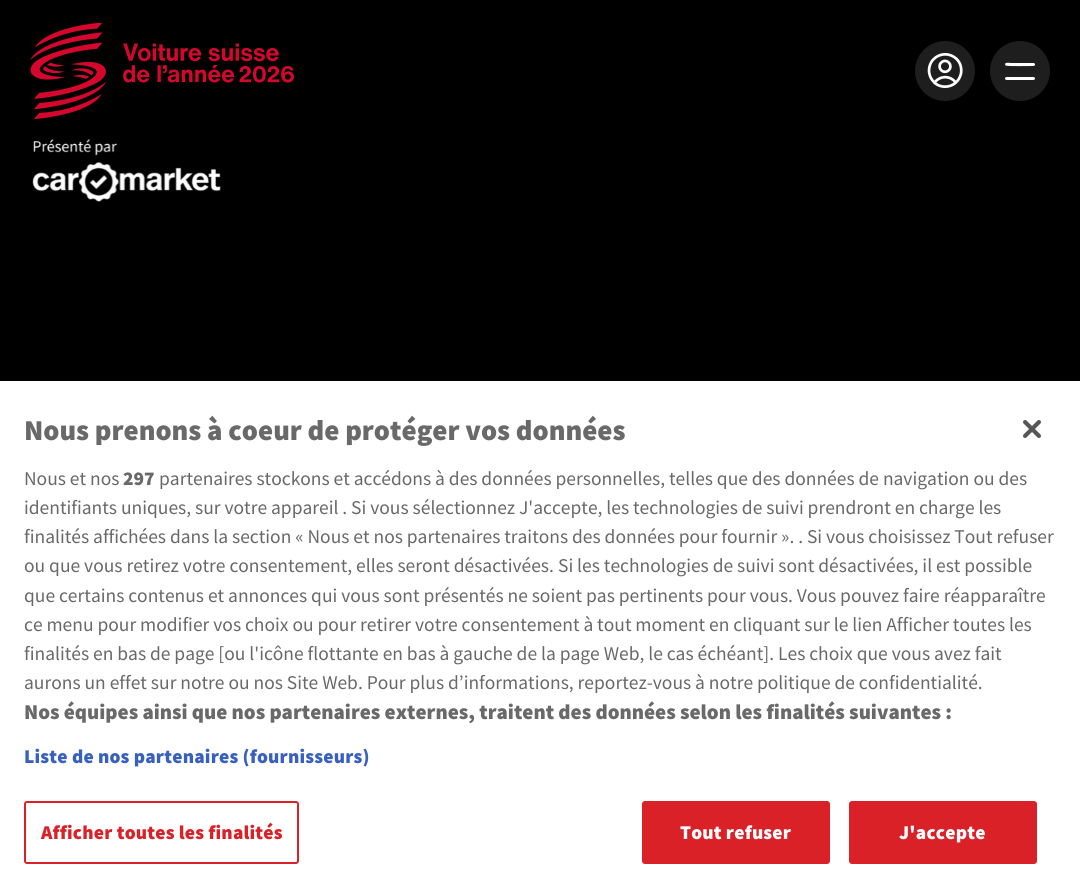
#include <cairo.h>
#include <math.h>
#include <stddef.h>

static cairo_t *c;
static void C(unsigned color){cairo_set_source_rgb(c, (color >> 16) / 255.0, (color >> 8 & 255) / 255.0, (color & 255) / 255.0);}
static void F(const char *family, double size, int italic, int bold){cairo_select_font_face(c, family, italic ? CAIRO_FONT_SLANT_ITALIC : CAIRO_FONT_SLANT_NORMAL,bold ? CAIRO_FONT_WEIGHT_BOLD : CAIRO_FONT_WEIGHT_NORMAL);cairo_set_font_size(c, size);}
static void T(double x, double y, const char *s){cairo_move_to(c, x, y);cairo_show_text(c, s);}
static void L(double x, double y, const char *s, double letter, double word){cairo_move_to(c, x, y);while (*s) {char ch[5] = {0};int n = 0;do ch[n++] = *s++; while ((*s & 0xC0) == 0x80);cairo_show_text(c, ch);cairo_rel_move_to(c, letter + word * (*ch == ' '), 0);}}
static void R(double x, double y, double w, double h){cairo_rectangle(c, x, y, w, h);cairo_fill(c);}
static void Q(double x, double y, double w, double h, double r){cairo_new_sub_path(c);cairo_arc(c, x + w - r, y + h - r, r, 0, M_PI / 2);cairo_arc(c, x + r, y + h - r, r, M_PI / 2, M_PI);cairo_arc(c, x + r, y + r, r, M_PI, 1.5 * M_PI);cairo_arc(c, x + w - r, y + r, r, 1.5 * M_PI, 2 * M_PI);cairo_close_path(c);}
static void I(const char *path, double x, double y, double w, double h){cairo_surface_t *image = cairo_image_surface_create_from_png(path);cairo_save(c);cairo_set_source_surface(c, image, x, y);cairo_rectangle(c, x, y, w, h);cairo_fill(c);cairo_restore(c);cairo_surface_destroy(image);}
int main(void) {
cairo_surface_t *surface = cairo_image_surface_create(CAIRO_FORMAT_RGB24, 1080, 885);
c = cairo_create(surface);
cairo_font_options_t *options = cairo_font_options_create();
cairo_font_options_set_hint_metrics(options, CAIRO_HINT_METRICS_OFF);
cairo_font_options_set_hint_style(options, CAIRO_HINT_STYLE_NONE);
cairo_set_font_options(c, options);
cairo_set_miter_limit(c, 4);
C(0x000000);
cairo_paint(c);
I("1.png",30,23,264,96);
I("2.png",32,139,189,63);
C(0x1e1e1e);
cairo_arc(c,945,71,30,0,2 * M_PI);
cairo_fill(c);
I("3.png",927,53,36,35);
cairo_arc(c,1020,71,30,0,2 * M_PI);
cairo_fill(c);
C(0xffffff);
cairo_new_path(c);
cairo_move_to(c,1033.5,66);
cairo_curve_to(c,1030,66,1006.5,66.5,1005.5,65.5);
cairo_line_to(c,1005,64);
cairo_curve_to(c,1005.5,62,1010.5,63,1011,63);
cairo_line_to(c,1034,63);
cairo_curve_to(c,1035,63.5,1035.5,65,1034.5,65.5);
cairo_close_path(c);
cairo_fill(c);
Q(1005,77,30,3,1.5);
cairo_fill(c);
R(0,381,1080,504);
F("Source Sans Pro Black",28.8,0,0);
C(0x696969);
T(24,440,"Nous prenons à coeur de protéger vos données");
F("Source Sans Pro",19.5,0,0);
T(24,485,"Nous et nos");
F("Source Sans Pro Black",19.5,0,0);
T(123,485,"297");
F("Source Sans Pro",19.5,0,0);
T(159,485,"partenaires stockons et accédons à des données personnelles, telles que des données de navigation ou des");
T(24,514,"identifiants uniques, sur votre appareil . Si vous sélectionnez J'accepte, les technologies de suivi prendront en charge les");
T(24,543,"finalités affichées dans la section « Nous et nos partenaires traitons des données pour fournir ». . Si vous choisissez Tout refuser");
T(24,572,"ou que vous retirez votre consentement, elles seront désactivées.");
T(558,572,"Si les technologies de suivi sont désactivées, il est possible");
T(24,602,"que certains contenus et annonces qui vous sont présentés ne soient pas pertinents pour vous. Vous pouvez faire réapparaître");
T(24,631,"ce menu pour modifier vos choix ou pour retirer votre consentement à tout moment en cliquant sur le lien Afficher toutes les");
T(24,660,"finalités en bas de page [ou l'icône flottante en bas à gauche de la page Web, le cas échéant]. Les choix que vous avez fait");
T(24,689,"aurons un effet sur notre ou nos Site Web. Pour plus d’informations, reportez-vous à notre politique de confidentialité.");
F("Source Sans Pro Black",21.1,0,0);
T(24,719,"Nos équipes ainsi que nos partenaires externes, traitent des données selon les finalités suivantes :");
F("Source Sans Pro Black",19.5,0,0);
C(0x3860be);
L(24,763,"Liste de nos partenaires (fournisseurs)",.2,0);
Q(25,802,273,61,2);
C(0xda2128);
cairo_stroke(c);
L(41,839,"Afficher toutes les finalités",.2,0);
Q(643,802,186,61,2);
cairo_fill_preserve(c);
cairo_stroke(c);
C(0xffffff);
L(680,839,"Tout refuser",.2,0);
C(0xda2128);
Q(850,802,186,61,2);
cairo_fill_preserve(c);
cairo_stroke(c);
C(0xffffff);
L(899,839,"J'accepte",.2,0);
I("4.png",1023,420,18,18);
cairo_surface_write_to_png(surface, "o.png");
cairo_font_options_destroy(options);
cairo_destroy(c);
cairo_surface_destroy(surface);
return 0;
}
